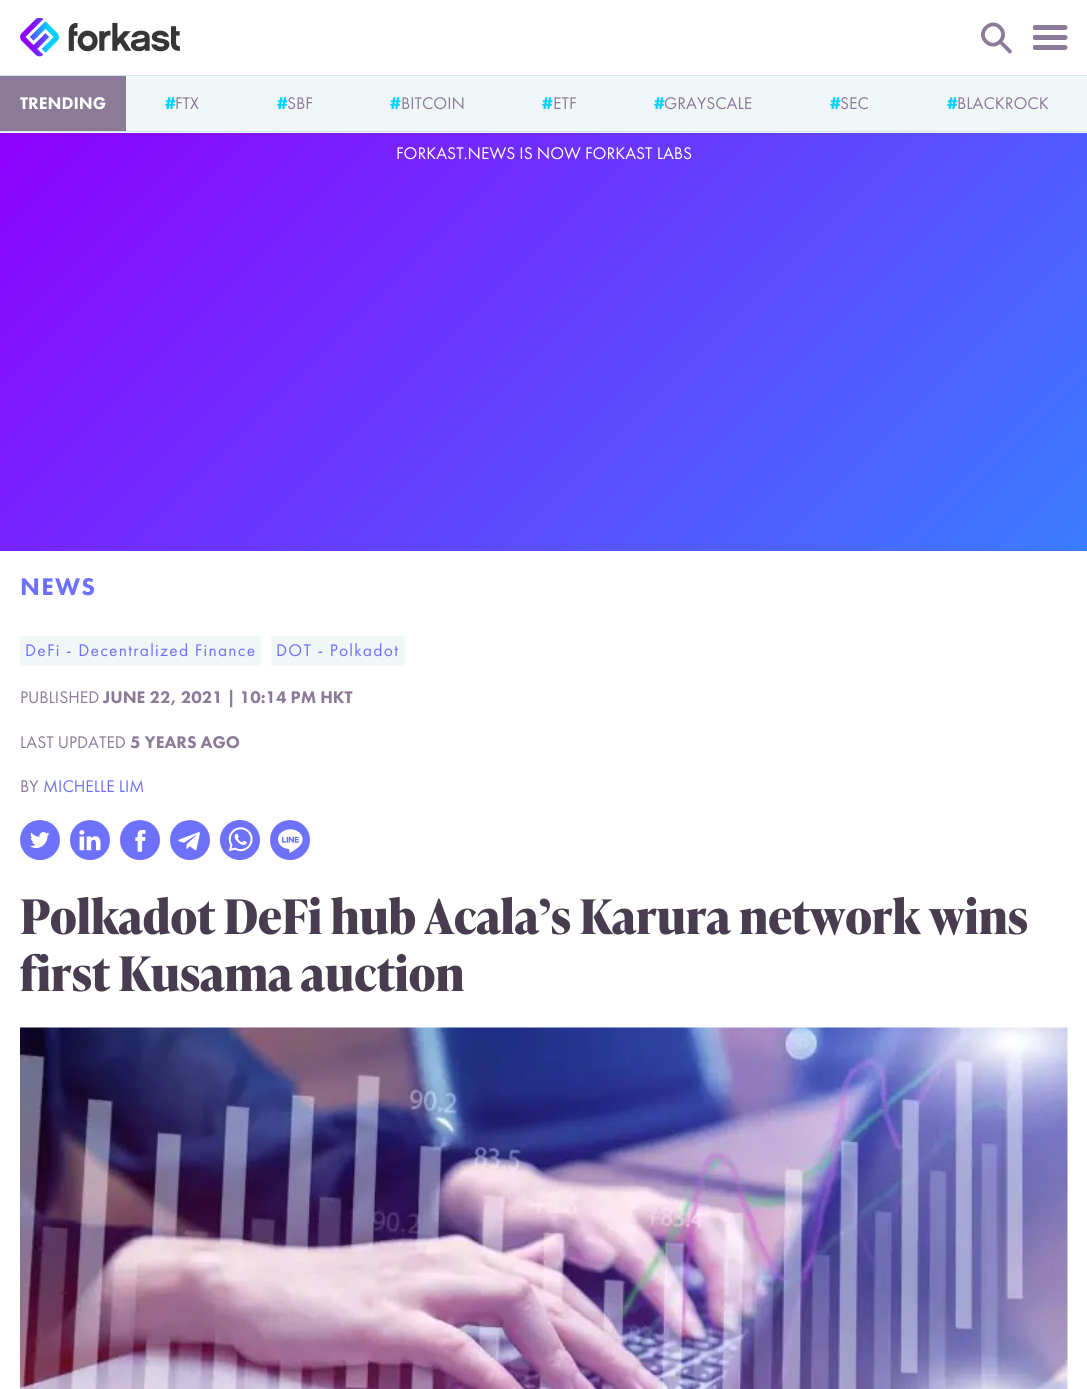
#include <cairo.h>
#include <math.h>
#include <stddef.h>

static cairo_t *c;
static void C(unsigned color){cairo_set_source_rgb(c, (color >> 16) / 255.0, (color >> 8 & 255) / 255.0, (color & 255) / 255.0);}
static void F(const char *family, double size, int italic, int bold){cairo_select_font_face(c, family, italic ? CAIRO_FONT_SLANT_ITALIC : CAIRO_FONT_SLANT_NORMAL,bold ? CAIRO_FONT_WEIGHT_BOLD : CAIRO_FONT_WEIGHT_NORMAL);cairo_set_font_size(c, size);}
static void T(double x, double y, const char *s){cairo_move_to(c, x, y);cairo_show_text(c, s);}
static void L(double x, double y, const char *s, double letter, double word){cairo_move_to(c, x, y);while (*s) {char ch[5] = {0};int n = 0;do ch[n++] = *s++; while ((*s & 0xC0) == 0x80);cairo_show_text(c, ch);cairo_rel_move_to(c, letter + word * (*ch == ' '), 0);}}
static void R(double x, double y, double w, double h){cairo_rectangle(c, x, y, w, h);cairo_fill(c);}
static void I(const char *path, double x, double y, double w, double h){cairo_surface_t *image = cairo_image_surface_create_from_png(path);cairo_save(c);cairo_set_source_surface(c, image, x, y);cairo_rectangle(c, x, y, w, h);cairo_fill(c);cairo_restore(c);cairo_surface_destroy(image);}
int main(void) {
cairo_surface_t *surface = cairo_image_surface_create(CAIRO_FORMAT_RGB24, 1087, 1389);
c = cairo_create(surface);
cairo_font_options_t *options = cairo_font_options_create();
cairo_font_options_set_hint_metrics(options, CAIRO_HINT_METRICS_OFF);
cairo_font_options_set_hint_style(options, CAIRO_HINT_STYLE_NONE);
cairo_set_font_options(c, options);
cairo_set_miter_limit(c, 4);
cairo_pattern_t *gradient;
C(0xffffff);
cairo_paint(c);
C(0xd2e4e8);
R(0,75,1087,1);
I("1.png",20,18,160,39);
cairo_new_path(c);
cairo_move_to(c,1000,27.5);
cairo_curve_to(c,1009.5,37,995,51,986,41.5);
cairo_curve_to(c,976.5,32.5,991,18,1000,27.5);
cairo_close_path(c);
C(0x8b7a98);
cairo_set_line_width(c,3.8);
cairo_stroke(c);
cairo_new_path(c);
cairo_move_to(c,1002,43.5);
cairo_line_to(c,1010,51.5);
cairo_set_line_cap(c,CAIRO_LINE_CAP_ROUND);
cairo_stroke(c);
I("2.png",1033,25,35,25);
C(0xf1f6f7);
R(0,76,1087,57);
C(0xd2e4e8);
R(0,131,1087,1);
C(0x8b7a98);
R(0,76,126,55);
F("Futura PT Black",17.5,0,0);
C(0xffffff);
T(20,109,"TRENDING");
C(0x00d2ff);
T(165,109,"#");
F("Futura PT",17.5,0,0);
C(0x8b7a98);
T(175,109,"FTX");
F("Futura PT Black",17.5,0,0);
C(0x00d2ff);
T(277,109,"#");
F("Futura PT",17.5,0,0);
C(0x8b7a98);
T(287,109,"SBF");
F("Futura PT Black",17.5,0,0);
C(0x00d2ff);
T(390,109,"#");
F("Futura PT",17.5,0,0);
C(0x8b7a98);
T(401,109,"BITCOIN");
F("Futura PT Black",17.5,0,0);
C(0x00d2ff);
T(542,109,"#");
F("Futura PT",17.5,0,0);
C(0x8b7a98);
T(553,109,"ETF");
F("Futura PT Black",17.5,0,0);
C(0x00d2ff);
T(654,109,"#");
F("Futura PT",17.5,0,0);
C(0x8b7a98);
T(664,109,"GRAYSCALE");
F("Futura PT Black",17.5,0,0);
C(0x00d2ff);
T(830,109,"#");
F("Futura PT",17.5,0,0);
C(0x8b7a98);
T(840,109,"SEC");
F("Futura PT Black",17.5,0,0);
C(0x00d2ff);
T(947,109,"#");
F("Futura PT",17.5,0,0);
C(0x8b7a98);
T(957,109,"BLACKROCK");
gradient = cairo_pattern_create_linear(167,-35,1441,1239);
cairo_pattern_add_color_stop_rgba(gradient,0,0.557,0,1,1);
cairo_pattern_add_color_stop_rgba(gradient,1,0,0.824,1,1);
cairo_set_source(c,gradient);
cairo_pattern_destroy(gradient);
R(0,133,1087,418);
C(0xffffff);
T(396,159,"FORKAST.NEWS IS NOW FORKAST LABS");
F("Futura PT Black",25,0,0);
C(0x6e71fc);
L(20,595,"NEWS",1.25,0);
C(0xf1f6f7);
R(20,636,241,30);
F("Futura PT",17.5,0,0);
C(0x6e71fc);
L(25,656,"DeFi - Decentralized Finance",1.25,0);
C(0xf1f6f7);
R(271,636,134,30);
C(0x6e71fc);
L(276,656,"DOT - Polkadot",1.25,0);
C(0x8b7a98);
T(20,703,"PUBLISHED");
F("Futura PT Black",17.5,0,0);
T(103,703,"JUNE 22, 2021 | 10:14 PM HKT");
F("Futura PT",17.5,0,0);
T(20,748,"LAST UPDATED");
F("Futura PT Black",17.5,0,0);
T(130,748,"5 YEARS AGO");
F("Futura PT",17.5,0,0);
T(20,792,"BY");
C(0x6e71fc);
T(43,792,"MICHELLE LIM");
I("3.png",20,820,40,40);
I("4.png",70,820,40,40);
I("5.png",120,820,40,40);
I("6.png",170,820,40,40);
I("7.png",220,820,40,40);
I("8.png",270,820,40,40);
F("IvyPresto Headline",47.5,0,1);
C(0x473d4f);
T(20,934,"Polkadot DeFi hub Acala’s Karura network wins");
T(20,991,"first Kusama auction");
I("9.png",20,1027,1048,362);
cairo_surface_write_to_png(surface, "o.png");
cairo_font_options_destroy(options);
cairo_destroy(c);
cairo_surface_destroy(surface);
return 0;
}
